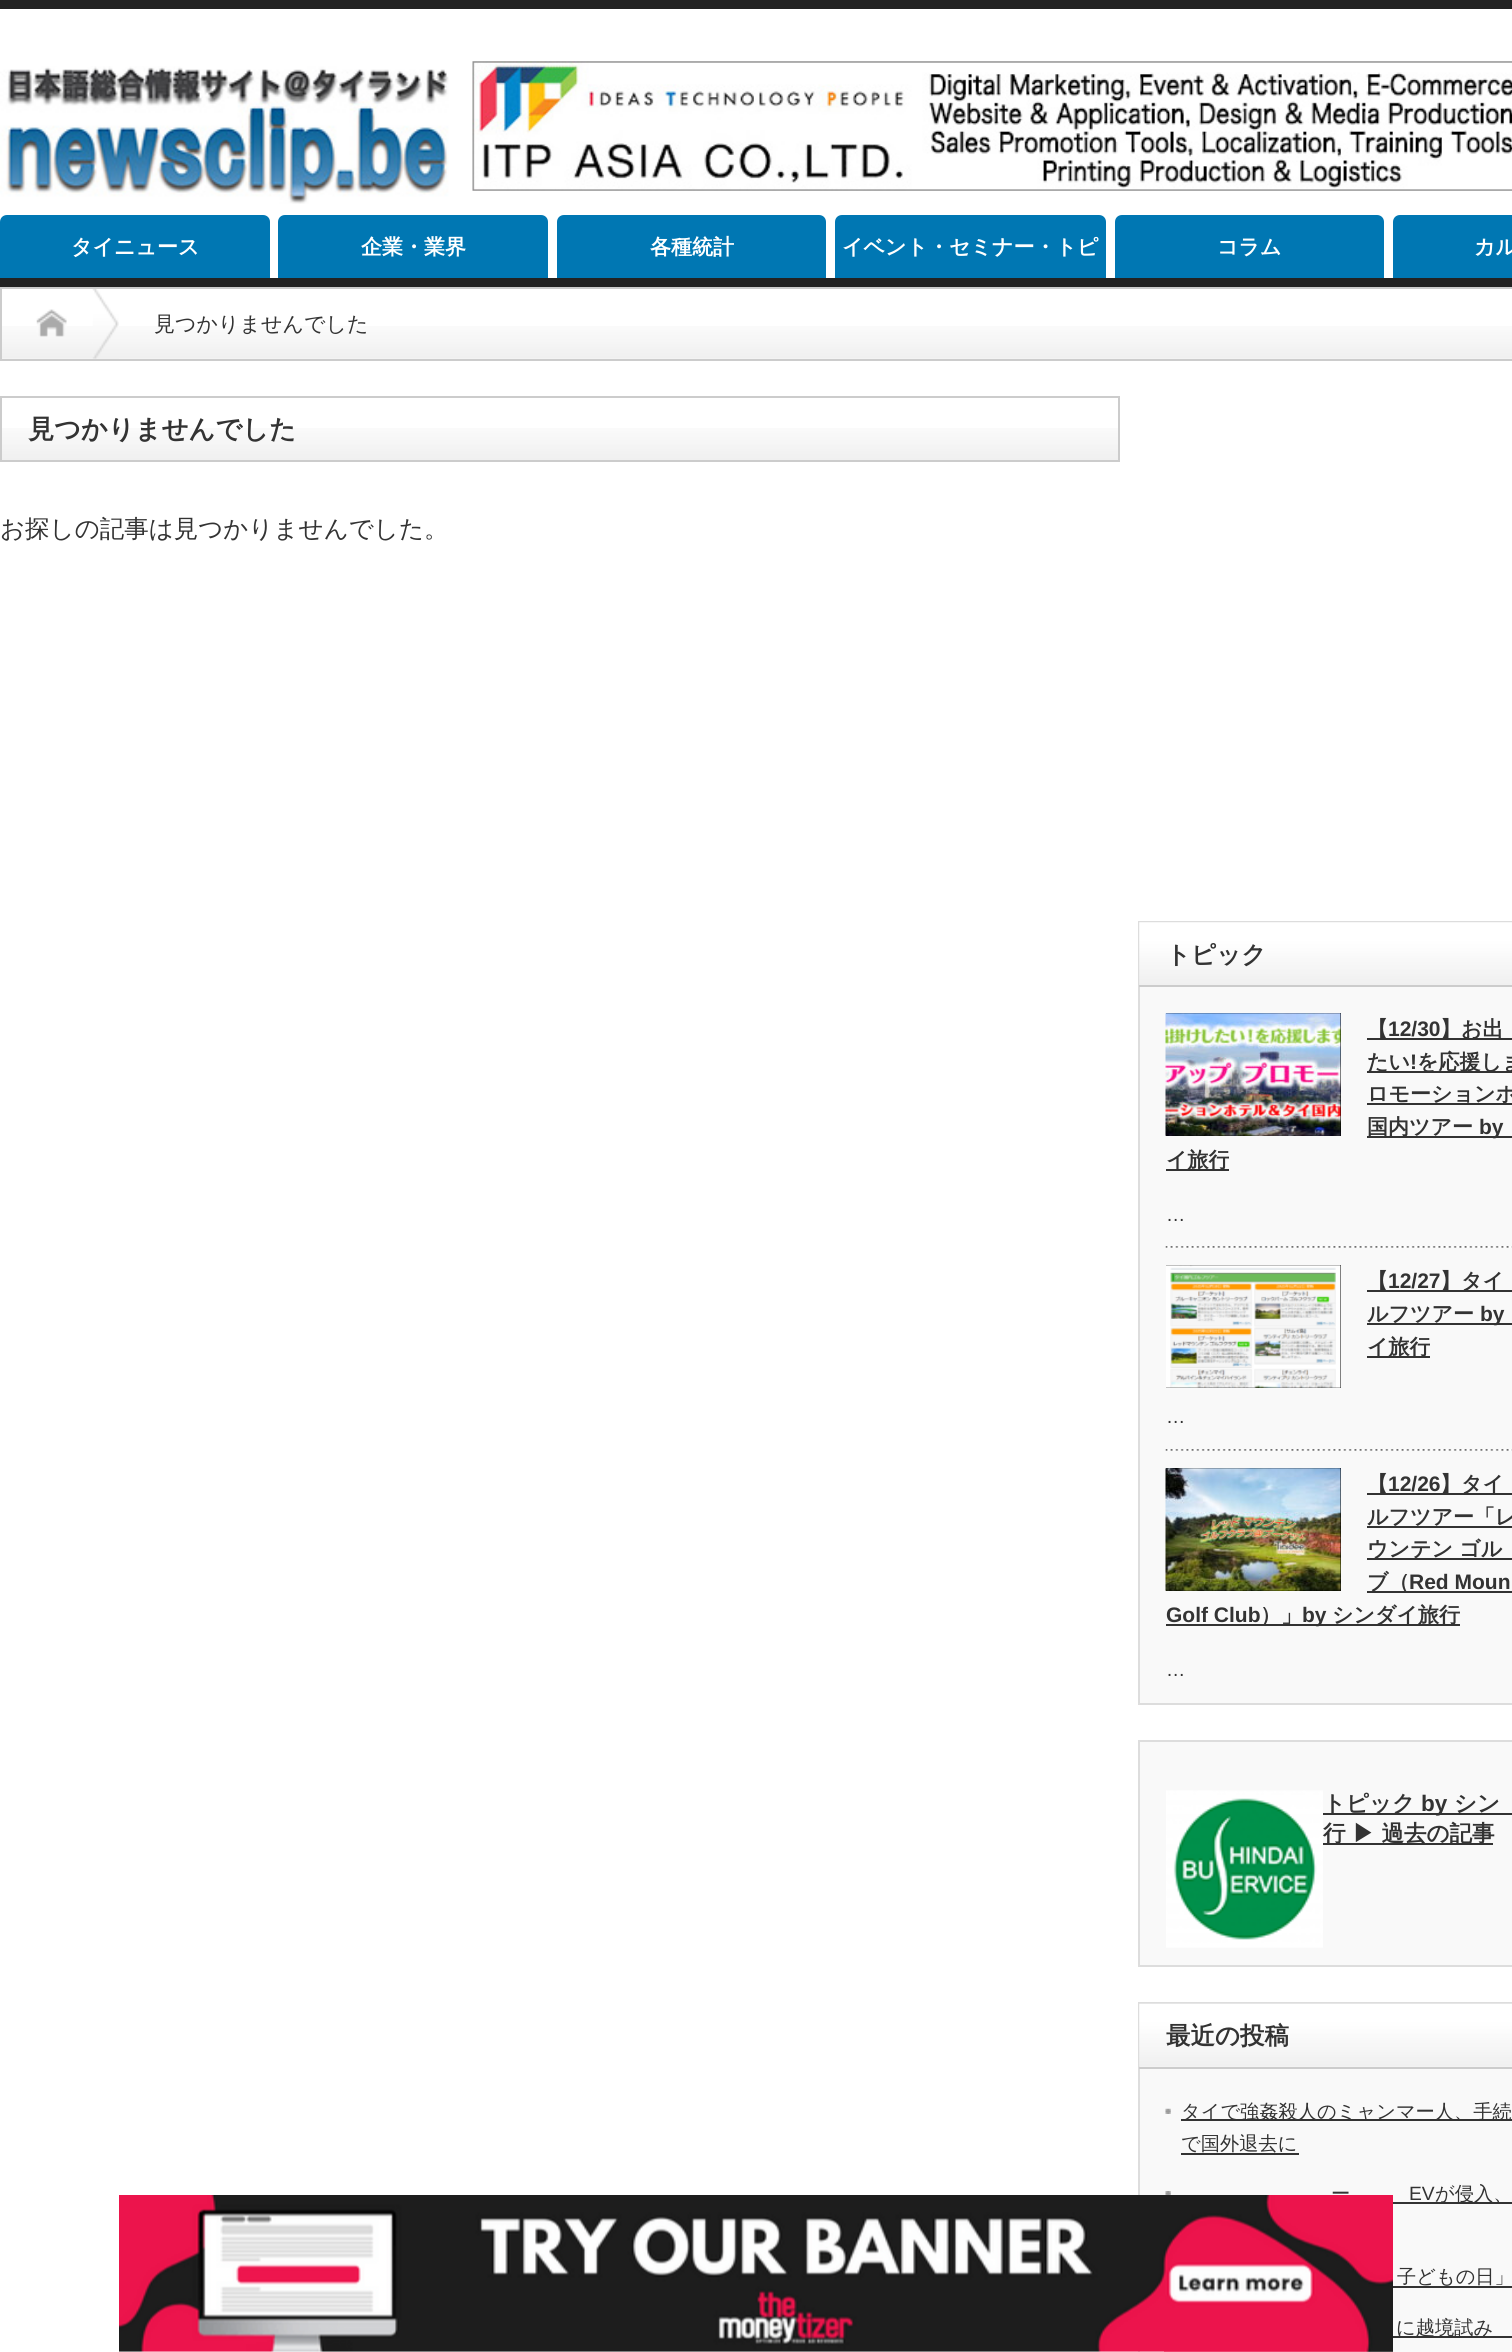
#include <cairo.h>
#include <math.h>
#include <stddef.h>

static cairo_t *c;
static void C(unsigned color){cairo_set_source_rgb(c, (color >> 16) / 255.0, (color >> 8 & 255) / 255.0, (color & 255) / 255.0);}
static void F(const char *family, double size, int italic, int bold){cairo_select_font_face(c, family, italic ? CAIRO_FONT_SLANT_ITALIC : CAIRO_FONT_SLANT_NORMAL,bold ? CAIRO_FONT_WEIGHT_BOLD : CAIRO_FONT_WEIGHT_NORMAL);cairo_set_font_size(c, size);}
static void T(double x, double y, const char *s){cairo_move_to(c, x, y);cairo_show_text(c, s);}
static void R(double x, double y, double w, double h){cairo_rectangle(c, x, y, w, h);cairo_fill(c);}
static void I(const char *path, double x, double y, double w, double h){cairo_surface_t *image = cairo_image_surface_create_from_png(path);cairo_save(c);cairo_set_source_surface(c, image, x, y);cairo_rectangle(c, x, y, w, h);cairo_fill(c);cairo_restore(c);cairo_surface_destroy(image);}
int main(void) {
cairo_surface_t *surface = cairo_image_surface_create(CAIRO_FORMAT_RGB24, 1512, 2352);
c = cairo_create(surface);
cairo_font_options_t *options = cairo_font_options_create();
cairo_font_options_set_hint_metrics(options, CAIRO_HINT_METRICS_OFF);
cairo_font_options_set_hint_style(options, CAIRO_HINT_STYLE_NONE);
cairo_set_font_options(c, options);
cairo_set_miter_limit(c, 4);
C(0xffffff);
cairo_paint(c);
C(0x222222);
R(0,0,1512,9);
I("1.png",0,66,449,138);
I("2.png",472,61,1040,130);
R(0,278,1512,9);
C(0x0077b3);
cairo_new_path(c);
cairo_move_to(c,7,215);
cairo_line_to(c,263,215);
cairo_curve_to(c,267,215,270,218,270,222);
cairo_line_to(c,270,278);
cairo_line_to(c,0,278);
cairo_line_to(c,0,222);
cairo_curve_to(c,0,218,3,215,7,215);
cairo_close_path(c);
cairo_fill(c);
F("WenQuanYi Zen Hei",21,0,1);
C(0xffffff);
T(71,254,"タイニュース");
C(0x0077b3);
cairo_new_path(c);
cairo_move_to(c,285,215);
cairo_line_to(c,541,215);
cairo_curve_to(c,545,215,548,218,548,222);
cairo_line_to(c,548,278);
cairo_line_to(c,278,278);
cairo_line_to(c,278,222);
cairo_curve_to(c,278,218,281,215,285,215);
cairo_close_path(c);
cairo_fill(c);
C(0xffffff);
T(361,254,"企業・業界");
C(0x0077b3);
cairo_new_path(c);
cairo_move_to(c,564,215);
cairo_line_to(c,819,215);
cairo_curve_to(c,823,215,826,218,826,222);
cairo_line_to(c,826,278);
cairo_line_to(c,557,278);
cairo_line_to(c,557,222);
cairo_curve_to(c,557,218,560,215,564,215);
cairo_close_path(c);
cairo_fill(c);
C(0xffffff);
T(650,254,"各種統計");
C(0x0077b3);
cairo_new_path(c);
cairo_move_to(c,842,215);
cairo_line_to(c,1099,215);
cairo_curve_to(c,1103,215,1106,218,1106,222);
cairo_line_to(c,1106,278);
cairo_line_to(c,835,278);
cairo_line_to(c,835,222);
cairo_curve_to(c,835,218,838,215,842,215);
cairo_close_path(c);
cairo_fill(c);
C(0xffffff);
T(842,254,"イベント・セミナー・トピ");
C(0x0077b3);
cairo_new_path(c);
cairo_move_to(c,1122,215);
cairo_line_to(c,1377,215);
cairo_curve_to(c,1381,215,1384,218,1384,222);
cairo_line_to(c,1384,278);
cairo_line_to(c,1115,278);
cairo_line_to(c,1115,222);
cairo_curve_to(c,1115,218,1118,215,1122,215);
cairo_close_path(c);
cairo_fill(c);
C(0xffffff);
T(1217,254,"コラム");
C(0x0077b3);
cairo_new_path(c);
cairo_move_to(c,1400,215);
cairo_line_to(c,1512,215);
cairo_curve_to(c,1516,215,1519,218,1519,222);
cairo_line_to(c,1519,278);
cairo_line_to(c,1393,278);
cairo_line_to(c,1393,222);
cairo_curve_to(c,1393,218,1396,215,1400,215);
cairo_close_path(c);
cairo_fill(c);
C(0xffffff);
T(1474,254,"カル");
I("3.png",2,326,1510,33);
cairo_rectangle(c,1,288,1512,72);
C(0xcccccc);
cairo_stroke(c);
I("4.png",92,289,27,70);
I("5.png",36,309,31,28);
F("WenQuanYi Zen Hei Medium",21,0,0);
C(0x333333);
T(154,331,"見つかりませんでした");
I("6.png",2,428,1116,32);
cairo_rectangle(c,1,397,1118,64);
C(0xcccccc);
cairo_stroke(c);
F("WenQuanYi Zen Hei",26.25,0,1);
C(0x333333);
T(28,438,"見つかりませんでした");
F("WenQuanYi Zen Hei Medium",24.5,0,0);
T(0,537,"お探しの記事は見つかりませんでした。");
C(0xf9f9f9);
R(1140,987,372,716);
cairo_rectangle(c,1139,922,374,782);
C(0xdddddd);
cairo_stroke(c);
I("7.png",1139,922,373,63);
C(0xcccccc);
R(1139,985,373,2);
F("WenQuanYi Zen Hei",24.5,0,1);
C(0x333333);
T(1166,963,"トピック");
I("8.png",1165,1246,347,2);
C(0x000000);
R(1166,1013,175,123);
I("9.png",1165,1013,176,123);
C(0x333333);
R(1367,1038,145,2);
F("WenQuanYi Zen Hei",21,0,1);
T(1367,1036,"【");
F("Liberation Sans",21,0,1);
T(1388,1036,"12/30");
F("WenQuanYi Zen Hei",21,0,1);
T(1440,1036,"】お出");
R(1367,1071,145,2);
T(1367,1069,"たい");
F("Liberation Sans",21,0,1);
T(1410,1069,"!");
F("WenQuanYi Zen Hei",21,0,1);
T(1417,1069,"を応援しま");
R(1367,1103,145,2);
T(1367,1101,"ロモーションホ");
R(1367,1136,145,2);
T(1367,1134,"国内ツアー");
F("Liberation Sans",21,0,1);
T(1479,1134,"by");
R(1166,1169,63,2);
F("WenQuanYi Zen Hei",21,0,1);
T(1166,1167,"イ旅行");
F("Liberation Sans",19.25,0,0);
T(1166,1221,"…");
I("8.png",1165,1449,347,2);
C(0x000000);
R(1166,1265,175,123);
I("10.png",1166,1265,175,123);
C(0x333333);
R(1367,1290,145,2);
F("WenQuanYi Zen Hei",21,0,1);
T(1367,1288,"【");
F("Liberation Sans",21,0,1);
T(1388,1288,"12/27");
F("WenQuanYi Zen Hei",21,0,1);
T(1440,1288,"】タイ");
R(1367,1323,145,2);
T(1367,1321,"ルフツアー");
F("Liberation Sans",21,0,1);
T(1480,1321,"by");
R(1367,1356,63,2);
F("WenQuanYi Zen Hei",21,0,1);
T(1367,1354,"イ旅行");
F("Liberation Sans",19.25,0,0);
T(1166,1423,"…");
C(0x000000);
R(1166,1468,175,123);
I("11.png",1165,1468,176,123);
C(0x333333);
R(1367,1493,145,2);
F("WenQuanYi Zen Hei",21,0,1);
T(1367,1491,"【");
F("Liberation Sans",21,0,1);
T(1388,1491,"12/26");
F("WenQuanYi Zen Hei",21,0,1);
T(1440,1491,"】タイ");
R(1367,1526,145,2);
T(1367,1524,"ルフツアー「レ");
R(1367,1558,145,2);
T(1367,1556,"ウンテン ゴル");
R(1367,1591,145,2);
T(1367,1589,"ブ（");
F("Liberation Sans",21,0,1);
T(1409,1589,"Red Moun");
T(1166,1622,"Golf Club");
R(1166,1624,294,2);
F("WenQuanYi Zen Hei",21,0,1);
T(1260,1622,"）」");
F("Liberation Sans",21,0,1);
T(1302,1622,"by");
F("WenQuanYi Zen Hei",21,0,1);
T(1332,1622,"シンダイ旅行");
F("Liberation Sans",19.25,0,0);
T(1166,1676,"…");
C(0xf9f9f9);
cairo_rectangle(c,1139,1741,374,225);
cairo_fill_preserve(c);
C(0xdddddd);
cairo_stroke(c);
I("12.png",1166,1790,157,158);
C(0x333333);
R(1323,1813,189,2);
F("WenQuanYi Zen Hei",22.5,0,1);
T(1323,1811,"トピック");
F("Liberation Sans",22.5,0,1);
T(1421,1811,"by");
F("WenQuanYi Zen Hei",22.5,0,1);
T(1454,1811,"シン");
R(1323,1843,170,2);
T(1323,1841,"行 ▶ 過去の記事");
C(0xf9f9f9);
R(1140,2066,372,286);
cairo_rectangle(c,1139,2003,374,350);
C(0xdddddd);
cairo_stroke(c);
I("13.png",1139,2003,373,64);
C(0xcccccc);
R(1139,2067,373,2);
F("WenQuanYi Zen Hei",24.5,0,1);
C(0x333333);
T(1166,2044,"最近の投稿");
I("14.png",1165,2108,6,6);
R(1181,2119,331,2);
F("WenQuanYi Zen Hei Medium",19.25,0,0);
T(1181,2118,"タイで強姦殺人のミャンマー人、手続");
T(1181,2150,"で国外退去に");
R(1181,2153,118,2);
I("15.png",1165,2191,6,4);
T(1331,2200,"ー");
F("Liberation Sans",19.25,0,0);
T(1409,2200,"EV");
R(1393,2202,119,2);
F("WenQuanYi Zen Hei Medium",19.25,0,0);
T(1435,2200,"が侵入、");
T(1397,2283,"子どもの日」");
R(1393,2286,119,2);
I("16.png",1164,2351,229,1);
R(1393,2336,119,2);
T(1396,2334,"に越境試み");
I("17.png",119,2195,1274,157);
cairo_surface_write_to_png(surface, "o.png");
cairo_font_options_destroy(options);
cairo_destroy(c);
cairo_surface_destroy(surface);
return 0;
}
